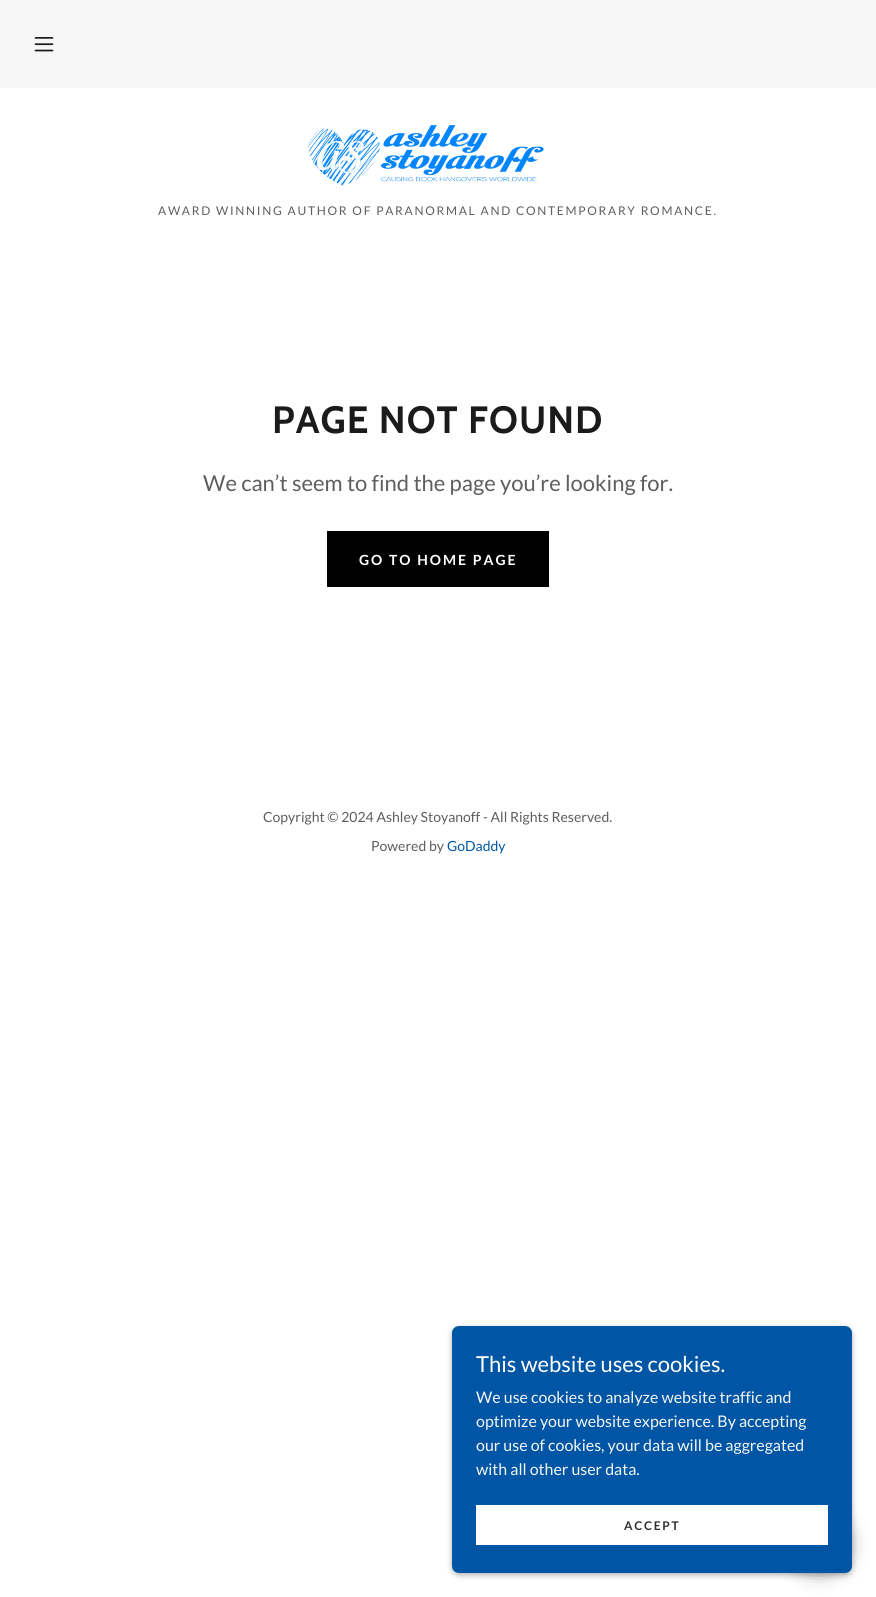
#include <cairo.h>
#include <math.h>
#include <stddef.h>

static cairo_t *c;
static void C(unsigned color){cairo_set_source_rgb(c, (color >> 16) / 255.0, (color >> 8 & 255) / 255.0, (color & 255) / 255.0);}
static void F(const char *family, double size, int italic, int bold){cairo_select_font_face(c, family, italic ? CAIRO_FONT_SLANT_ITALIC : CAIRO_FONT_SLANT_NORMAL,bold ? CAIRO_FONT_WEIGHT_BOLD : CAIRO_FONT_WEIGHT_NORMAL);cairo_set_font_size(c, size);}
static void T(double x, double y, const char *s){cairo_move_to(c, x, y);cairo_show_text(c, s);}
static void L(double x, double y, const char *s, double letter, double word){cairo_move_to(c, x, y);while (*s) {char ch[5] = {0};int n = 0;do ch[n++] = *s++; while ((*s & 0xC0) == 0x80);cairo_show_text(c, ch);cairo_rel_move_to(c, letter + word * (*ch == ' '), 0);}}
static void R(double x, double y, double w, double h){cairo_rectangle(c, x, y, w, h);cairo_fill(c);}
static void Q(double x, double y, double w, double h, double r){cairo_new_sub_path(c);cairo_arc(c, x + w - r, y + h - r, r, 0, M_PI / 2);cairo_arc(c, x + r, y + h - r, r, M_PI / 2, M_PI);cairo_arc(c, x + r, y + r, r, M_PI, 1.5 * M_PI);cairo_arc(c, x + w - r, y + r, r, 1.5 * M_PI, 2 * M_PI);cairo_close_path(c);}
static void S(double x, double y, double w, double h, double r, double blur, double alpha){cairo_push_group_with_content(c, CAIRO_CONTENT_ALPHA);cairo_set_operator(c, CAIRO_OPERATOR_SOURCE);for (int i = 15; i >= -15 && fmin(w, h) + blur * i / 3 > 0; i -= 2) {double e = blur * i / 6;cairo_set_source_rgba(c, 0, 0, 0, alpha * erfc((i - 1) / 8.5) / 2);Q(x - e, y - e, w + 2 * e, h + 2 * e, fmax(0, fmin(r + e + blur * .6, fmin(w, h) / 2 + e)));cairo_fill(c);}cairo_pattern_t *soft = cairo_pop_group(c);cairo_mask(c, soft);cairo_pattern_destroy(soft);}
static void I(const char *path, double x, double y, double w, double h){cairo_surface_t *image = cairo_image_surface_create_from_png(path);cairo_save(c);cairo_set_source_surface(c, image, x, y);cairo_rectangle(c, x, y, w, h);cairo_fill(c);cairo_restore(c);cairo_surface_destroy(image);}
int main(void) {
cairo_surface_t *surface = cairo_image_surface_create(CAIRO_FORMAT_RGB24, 876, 1597);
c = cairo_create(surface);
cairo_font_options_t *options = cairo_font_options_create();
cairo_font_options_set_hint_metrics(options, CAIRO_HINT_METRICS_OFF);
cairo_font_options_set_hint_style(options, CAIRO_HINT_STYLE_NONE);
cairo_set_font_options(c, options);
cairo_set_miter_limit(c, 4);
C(0xffffff);
cairo_paint(c);
C(0xf6f6f6);
R(0,0,876,88);
I("1.png",34,37,20,15);
I("2.png",308,125,236,61);
F("Lato",12,0,0);
C(0x5e5e5e);
L(158,215,"AWARD WINNING AUTHOR OF PARANORMAL AND CONTEMPORARY ROMANCE.",1.72,0);
F("Cabin",38,0,1);
C(0x1b1b1b);
L(272,433,"PAGE NOT FOUND",1,0);
F("Lato",22,0,0);
C(0x5e5e5e);
T(203,491,"We can’t seem to find the page you’re looking for.");
C(0x000000);
R(327,531,222,56);
F("Lato",14,0,1);
C(0xffffff);
L(359,565,"GO TO HOME PAGE",2,0);
F("Lato",14,0,0);
C(0x5e5e5e);
T(263,822,"Copyright © 2024 Ashley Stoyanoff - All Rights Reserved.");
T(371,851,"Powered by");
C(0x0056a4);
T(447,851,"GoDaddy");
C(0x000000);
S(452,1328,400,247,7,3,.3);
S(787,1511,65,65,32.5,9,.25);
C(0x0056a4);
Q(452,1326,400,247,7);
cairo_fill(c);
F("Lato",22,0,0);
C(0xffffff);
T(476,1372,"This website uses cookies.");
F("Lato",16,0,0);
C(0xf5f5f6);
T(476,1403,"We use cookies to analyze website traffic and");
T(476,1427,"optimize your website experience. By accepting");
T(476,1451,"our use of cookies, your data will be aggregated");
T(476,1475,"with all other user data.");
C(0xffffff);
R(476,1505,352,40);
F("Lato",12,0,1);
C(0x303030);
L(624,1530,"ACCEPT",1.72,0);
cairo_surface_write_to_png(surface, "o.png");
cairo_font_options_destroy(options);
cairo_destroy(c);
cairo_surface_destroy(surface);
return 0;
}
